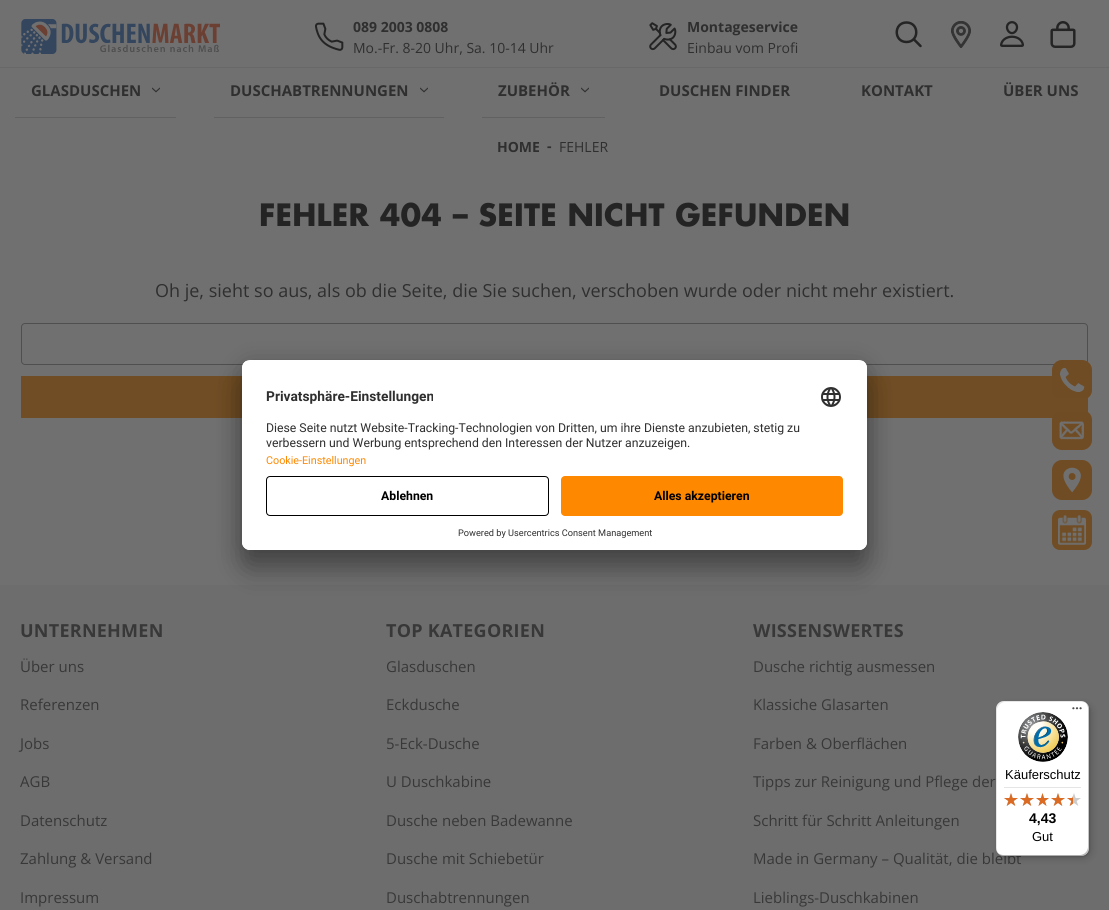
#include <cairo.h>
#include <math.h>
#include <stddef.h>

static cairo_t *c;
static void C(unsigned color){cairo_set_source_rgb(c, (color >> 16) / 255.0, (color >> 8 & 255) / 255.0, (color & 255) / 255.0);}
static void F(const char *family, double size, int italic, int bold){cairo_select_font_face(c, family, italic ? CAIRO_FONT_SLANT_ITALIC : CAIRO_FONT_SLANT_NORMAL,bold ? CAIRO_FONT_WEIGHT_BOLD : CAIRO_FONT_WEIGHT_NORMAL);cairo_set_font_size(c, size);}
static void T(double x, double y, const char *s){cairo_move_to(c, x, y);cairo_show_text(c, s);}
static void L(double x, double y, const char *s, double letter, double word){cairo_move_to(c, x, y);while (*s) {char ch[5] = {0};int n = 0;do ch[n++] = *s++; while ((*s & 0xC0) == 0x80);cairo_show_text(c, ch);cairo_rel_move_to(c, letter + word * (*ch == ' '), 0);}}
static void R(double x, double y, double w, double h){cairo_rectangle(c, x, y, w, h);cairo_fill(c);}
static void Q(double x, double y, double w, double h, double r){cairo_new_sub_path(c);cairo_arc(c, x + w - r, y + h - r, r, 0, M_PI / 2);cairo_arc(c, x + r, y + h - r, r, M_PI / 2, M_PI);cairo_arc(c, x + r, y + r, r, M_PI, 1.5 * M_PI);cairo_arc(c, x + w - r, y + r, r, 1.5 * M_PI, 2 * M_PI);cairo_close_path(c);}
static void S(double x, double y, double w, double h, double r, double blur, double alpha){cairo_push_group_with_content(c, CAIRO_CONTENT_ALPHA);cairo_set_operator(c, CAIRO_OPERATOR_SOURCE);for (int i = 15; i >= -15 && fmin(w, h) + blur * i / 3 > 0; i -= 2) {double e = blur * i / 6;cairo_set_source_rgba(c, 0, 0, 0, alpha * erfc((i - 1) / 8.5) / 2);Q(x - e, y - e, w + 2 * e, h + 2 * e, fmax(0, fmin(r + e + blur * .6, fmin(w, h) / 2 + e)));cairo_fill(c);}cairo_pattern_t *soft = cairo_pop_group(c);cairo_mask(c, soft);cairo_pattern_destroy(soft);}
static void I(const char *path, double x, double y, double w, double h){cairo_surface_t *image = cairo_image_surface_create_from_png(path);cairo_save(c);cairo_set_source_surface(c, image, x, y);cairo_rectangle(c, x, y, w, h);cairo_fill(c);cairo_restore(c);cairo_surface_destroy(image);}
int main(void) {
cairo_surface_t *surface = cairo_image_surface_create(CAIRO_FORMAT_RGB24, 1109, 910);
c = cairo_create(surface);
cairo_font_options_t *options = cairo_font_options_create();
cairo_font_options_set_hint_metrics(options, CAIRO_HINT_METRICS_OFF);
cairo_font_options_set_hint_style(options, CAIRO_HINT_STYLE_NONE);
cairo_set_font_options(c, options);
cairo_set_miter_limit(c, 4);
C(0x707070);
cairo_paint(c);
I("1.png",21,19,199,35);
I("2.png",315,22,29,29);
F("Open Sans",14,0,1);
C(0x2f2f2f);
T(353,32,"089 2003 0808");
F("Open Sans",14,0,0);
T(353,53,"Mo.-Fr. 8-20 Uhr, Sa. 10-14 Uhr");
I("3.png",649,22,28,29);
F("Open Sans",14,0,1);
T(687,32,"Montageservice");
F("Open Sans",14,0,0);
T(687,53,"Einbau vom Profi");
cairo_new_path(c);
cairo_move_to(c,906.5,22.5);
cairo_curve_to(c,893.5,22.5,893.5,42,906.5,42);
cairo_curve_to(c,919.5,42,919.5,22.5,906.5,22.5);
cairo_close_path(c);
C(0x242424);
cairo_set_line_width(c,2.5);
cairo_stroke(c);
cairo_new_path(c);
cairo_move_to(c,914,39.5);
cairo_line_to(c,920.5,46);
cairo_set_line_cap(c,CAIRO_LINE_CAP_ROUND);
cairo_stroke(c);
I("4.png",951,21,20,27);
I("5.png",1000,21,24,26);
I("6.png",1050,21,26,27);
C(0x686868);
R(0,67,1109,1);
C(0x616161);
R(15,117,161,1);
F("Open Sans",15,0,1);
C(0x2f2f2f);
T(31,96,"GLASDUSCHEN");
I("7.png",152,87,8,6);
C(0x616161);
R(214,117,230,1);
C(0x2f2f2f);
T(230,96,"DUSCHABTRENNUNGEN");
I("7.png",420,87,8,6);
C(0x616161);
R(482,117,123,1);
C(0x2f2f2f);
T(498,96,"ZUBEHÖR");
I("7.png",581,87,8,6);
T(659,96,"DUSCHEN FINDER");
T(861,96,"KONTAKT");
T(1003,96,"ÜBER UNS");
F("Open Sans",14,0,1);
T(497,152,"HOME");
T(547,151,"-");
F("Open Sans",14,0,0);
T(559,152,"FEHLER");
F("Futura",30,0,1);
C(0x242424);
L(259,226,"FEHLER 404 – SEITE NICHT GEFUNDEN",.25,0);
F("Open Sans",18,0,0);
C(0x2f2f2f);
T(155,297,"Oh je, sieht so aus, als ob die Seite, die Sie suchen, verschoben wurde oder nicht mehr existiert.");
Q(21.5,323.5,1066,41,3.5);
C(0x4f4f4f);
cairo_set_line_width(c,1);
cairo_set_line_cap(c,CAIRO_LINE_CAP_BUTT);
cairo_stroke(c);
C(0x704d24);
R(21,376,1067,42);
C(0x6d6d6d);
R(0,585,1109,325);
C(0x000000);
S(242,380,625,190,8,14,.3);
S(242,365,625,190,8,13,.22);
C(0xffffff);
Q(242,360,625,190,8);
cairo_fill(c);
cairo_save(c);
Q(242,360,625,190,8);
cairo_clip(c);
cairo_new_path(c);
cairo_move_to(c,250,360);
cairo_line_to(c,859,360);
cairo_curve_to(c,863.5,360,867,363.5,867,368);
cairo_line_to(c,867,468);
cairo_line_to(c,242,468);
cairo_line_to(c,242,368);
cairo_curve_to(c,242,363.5,245.5,360,250,360);
cairo_close_path(c);
cairo_clip(c);
R(242,361,625,107);
cairo_restore(c);
F("Roboto",13.75,0,1);
C(0x2f2f2f);
T(266,401,"Privatsphäre-Einstellungen");
I("8.png",821,387,20,20);
F("Roboto",12.25,0,0);
T(266,432,"Diese Seite nutzt Website-Tracking-Technologien von Dritten, um ihre Dienste anzubieten, stetig zu");
T(266,447,"verbessern und Werbung entsprechend den Interessen der Nutzer anzuzeigen.");
F("Roboto",10.75,0,0);
C(0xfe8800);
T(266,464,"Cookie-Einstellungen");
C(0xffffff);
cairo_new_path(c);
cairo_move_to(c,242,468);
cairo_line_to(c,867,468);
cairo_line_to(c,867,542);
cairo_curve_to(c,867,546.5,863.5,550,859,550);
cairo_line_to(c,250,550);
cairo_curve_to(c,245.5,550,242,546.5,242,542);
cairo_close_path(c);
cairo_fill(c);
Q(266.5,476.5,282,39,3.5);
C(0x000000);
cairo_stroke(c);
F("Roboto",12.25,0,1);
T(381,500,"Ablehnen");
C(0xfe8800);
Q(561,476,282,40,4);
cairo_fill(c);
C(0x000000);
T(654,500,"Alles akzeptieren");
F("Roboto",9.2,0,0);
C(0x2f2f2f);
T(458,536,"Powered by Usercentrics Consent Management");
I("9.png",1052,360,40,38);
I("10.png",1052,412,40,38);
I("11.png",1052,460,40,40);
C(0x704d24);
Q(1052,510,40,40,8);
cairo_fill(c);
I("12.png",1058,515,28,30);
F("Open Sans",18,0,1);
C(0x383838);
L(20,637,"UNTERNEHMEN",.25,0);
F("Open Sans",15,0,0);
T(20,672,"Über uns");
T(20,710,"Referenzen");
T(20,749,"Jobs");
T(20,787,"AGB");
T(20,826,"Datenschutz");
T(20,864,"Zahlung & Versand");
T(20,903,"Impressum");
F("Open Sans",18,0,1);
L(386,637,"TOP KATEGORIEN",.25,0);
F("Open Sans",15,0,0);
T(386,672,"Glasduschen");
T(386,710,"Eckdusche");
T(386,749,"5-Eck-Dusche");
T(386,787,"U Duschkabine");
T(386,826,"Dusche neben Badewanne");
T(386,864,"Dusche mit Schiebetür");
T(386,903,"Duschabtrennungen");
F("Open Sans",18,0,1);
L(753,637,"WISSENSWERTES",.25,0);
F("Open Sans",15,0,0);
T(753,672,"Dusche richtig ausmessen");
T(753,710,"Klassiche Glasarten");
T(753,749,"Farben & Oberflächen");
T(753,787,"Tipps zur Reinigung und Pflege der");
T(753,826,"Schritt für Schritt Anleitungen");
T(753,864,"Made in Germany – Qualität, die bleibt");
T(753,903,"Lieblings-Duschkabinen");
C(0x000000);
S(999,704,93,155,8,4,.15);
S(997,702,93,155,8,1,.15);
C(0xffffff);
Q(996,701,93,155,8);
cairo_fill(c);
cairo_set_source_rgba(c,0,0,0,0.1);
cairo_new_path(c);
cairo_move_to(c,1005,702);
cairo_line_to(c,1082,702);
cairo_curve_to(c,1084,702,1086,703,1088,705);
cairo_curve_to(c,1086,703,1084,701,1081,701);
cairo_line_to(c,1004,701);
cairo_curve_to(c,1000,701,996,705,996,709);
cairo_line_to(c,996,848);
cairo_curve_to(c,996,851,998,853,1000,855);
cairo_curve_to(c,998,853,997,851,997,849);
cairo_line_to(c,997,710);
cairo_curve_to(c,997,706,1001,702,1005,702);
cairo_close_path(c);
cairo_fill(c);
cairo_set_source_rgba(c,0,0,0,0.2);
cairo_new_path(c);
cairo_move_to(c,997,852);
cairo_curve_to(c,999,854,1001,856,1004,856);
cairo_line_to(c,1081,856);
cairo_curve_to(c,1085,856,1089,852,1089,848);
cairo_line_to(c,1089,709);
cairo_curve_to(c,1089,706,1087,704,1085,702);
cairo_curve_to(c,1087,704,1088,706,1088,708);
cairo_line_to(c,1088,847);
cairo_curve_to(c,1088,851,1084,855,1080,855);
cairo_line_to(c,1003,855);
cairo_curve_to(c,1001,855,999,854,997,852);
cairo_close_path(c);
cairo_fill(c);
cairo_set_source_rgba(c,0.196,0.196,0.196,0.2);
cairo_new_path(c);
cairo_move_to(c,998,853);
cairo_curve_to(c,999,855,1002,856,1004,856);
cairo_line_to(c,1081,856);
cairo_curve_to(c,1085,856,1089,852,1089,848);
cairo_line_to(c,1089,709);
cairo_curve_to(c,1089,707,1088,704,1086,703);
cairo_curve_to(c,1087,704,1088,706,1088,708);
cairo_line_to(c,1088,847);
cairo_curve_to(c,1088,852,1085,855,1080,855);
cairo_line_to(c,1003,855);
cairo_curve_to(c,1001,855,999,854,998,853);
cairo_close_path(c);
cairo_fill(c);
cairo_set_source_rgba(c,1,1,1,0.3);
cairo_new_path(c);
cairo_move_to(c,1080,856);
cairo_line_to(c,1081,856);
cairo_curve_to(c,1085,856,1089,852,1089,848);
cairo_line_to(c,1089,709);
cairo_curve_to(c,1089,707,1088,704,1086,703);
cairo_curve_to(c,1087,704,1088,706,1088,708);
cairo_line_to(c,1088,848);
cairo_curve_to(c,1088,852,1085,856,1080,856);
cairo_close_path(c);
cairo_fill(c);
I("13.png",1072,707,10,3);
I("14.png",1018,712,50,50);
F("Liberation Sans",13,0,0);
C(0x000000);
T(1005,779,"Käuferschutz");
C(0xe5e5e5);
R(1004,787,77,1);
I("15.png",1004,793,14,13);
I("15.png",1020,793,14,13);
I("16.png",1036,793,13,13);
I("15.png",1051,793,14,13);
I("15.png",1067,793,14,13);
I("17.png",1004,793,14,13);
I("17.png",1020,793,14,13);
I("18.png",1036,793,13,13);
I("17.png",1051,793,14,13);
I("19.png",1067,796,6,10);
F("Liberation Sans",14,0,1);
C(0x000000);
T(1029,823,"4,43");
F("Liberation Sans",13,0,0);
T(1032,841,"Gut");
cairo_surface_write_to_png(surface, "o.png");
cairo_font_options_destroy(options);
cairo_destroy(c);
cairo_surface_destroy(surface);
return 0;
}
